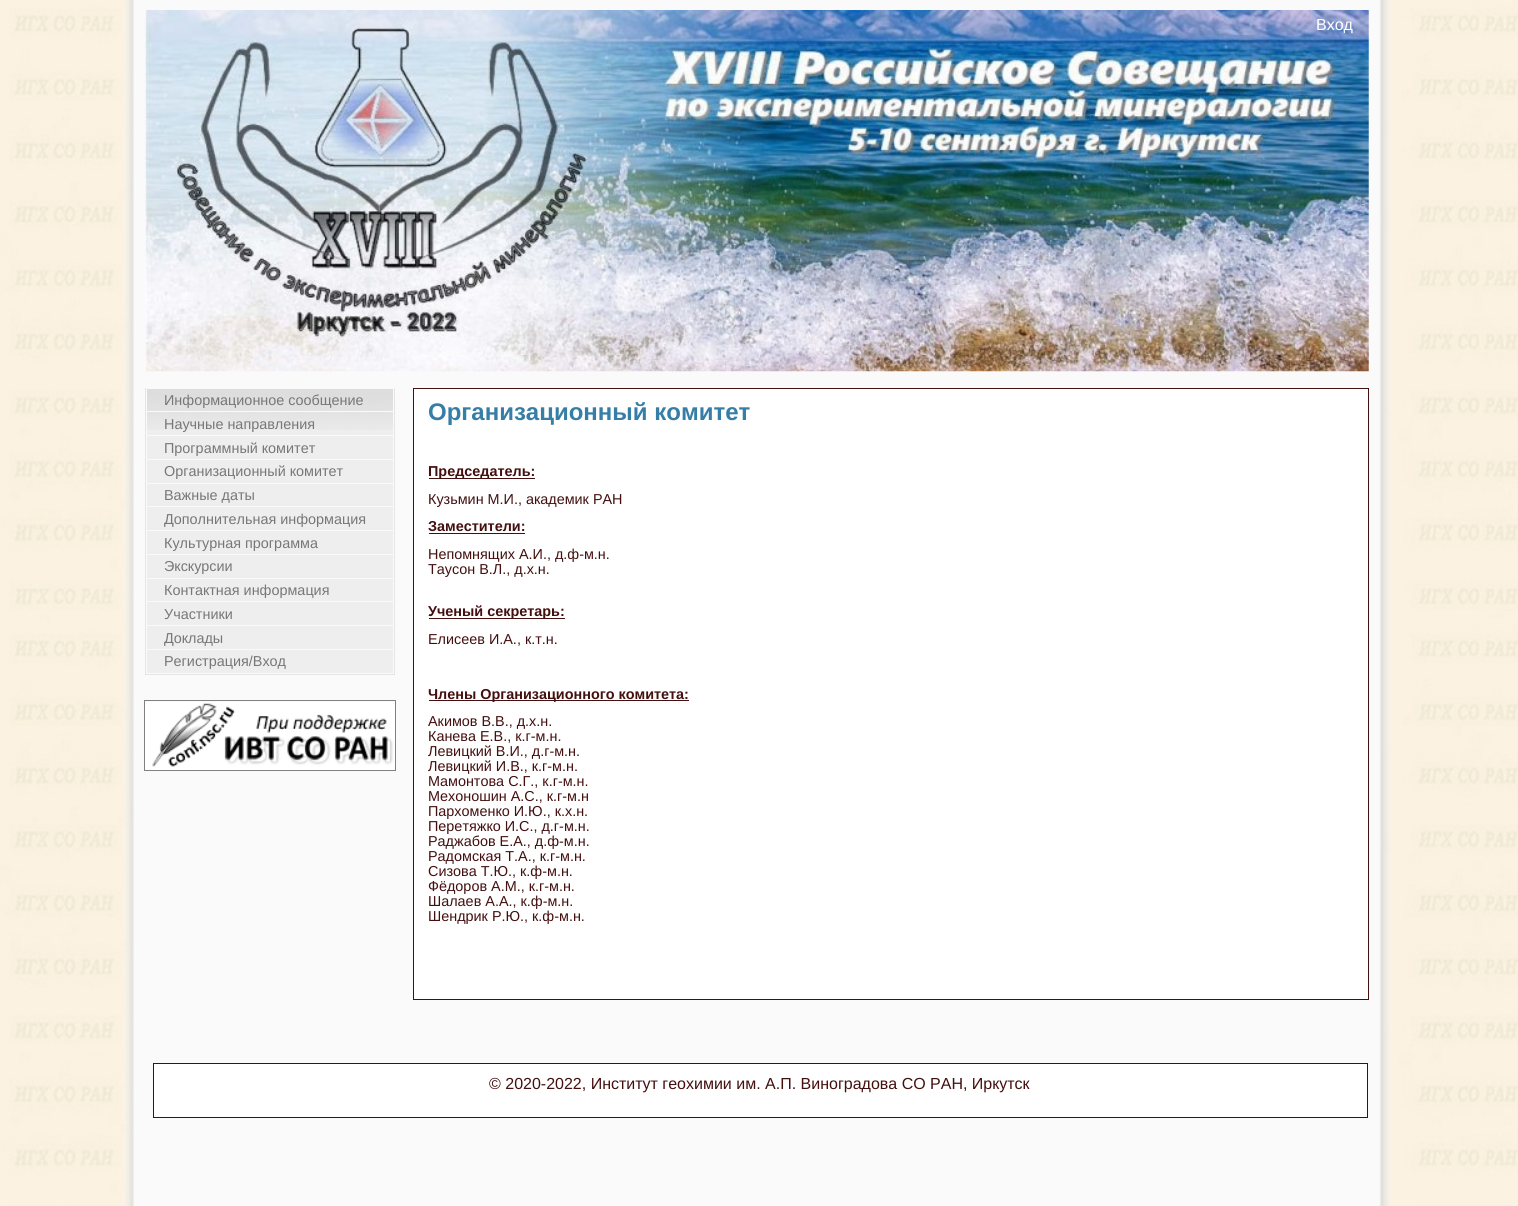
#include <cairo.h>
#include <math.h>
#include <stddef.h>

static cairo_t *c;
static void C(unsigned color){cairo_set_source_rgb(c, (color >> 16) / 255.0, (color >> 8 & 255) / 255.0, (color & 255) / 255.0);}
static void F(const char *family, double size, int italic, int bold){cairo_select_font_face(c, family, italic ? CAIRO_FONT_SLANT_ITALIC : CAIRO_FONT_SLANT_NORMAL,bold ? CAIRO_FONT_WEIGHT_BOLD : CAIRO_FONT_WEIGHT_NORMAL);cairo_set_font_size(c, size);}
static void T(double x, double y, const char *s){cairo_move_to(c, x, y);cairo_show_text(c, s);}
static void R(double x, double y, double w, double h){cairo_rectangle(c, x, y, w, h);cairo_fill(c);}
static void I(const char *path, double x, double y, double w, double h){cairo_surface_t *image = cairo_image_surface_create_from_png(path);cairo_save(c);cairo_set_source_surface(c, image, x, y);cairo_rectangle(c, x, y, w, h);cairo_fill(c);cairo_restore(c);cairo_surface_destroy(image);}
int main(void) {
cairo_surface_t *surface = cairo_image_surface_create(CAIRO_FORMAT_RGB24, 1518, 1206);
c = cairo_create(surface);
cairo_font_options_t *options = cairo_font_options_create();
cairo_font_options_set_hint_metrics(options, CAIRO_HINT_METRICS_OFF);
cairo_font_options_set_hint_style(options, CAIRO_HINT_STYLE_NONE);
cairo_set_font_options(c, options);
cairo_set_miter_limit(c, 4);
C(0xffffff);
cairo_paint(c);
I("1.png",0,0,1518,1206);
I("2.png",123,0,1269,1206);
I("3.png",145,10,1224,362);
F("Liberation Sans",16,0,0);
C(0xffffff);
T(1316,30,"Вход");
C(0xeeeeee);
R(147,430,246,243);
I("4.png",147,389,246,41);
C(0xe5e5e5);
R(394,388,1,287);
R(145,674,250,1);
R(145,388,1,287);
C(0xfafafa);
R(146,411,248,1);
F("Liberation Sans",14.4,0,0);
C(0x777777);
T(164,405,"Информационное сообщение");
C(0xfafafa);
R(146,435,248,1);
C(0x777777);
T(164,429,"Научные направления");
C(0xfafafa);
R(146,459,248,1);
C(0x777777);
T(164,453,"Программный комитет");
C(0xfafafa);
R(146,483,248,1);
C(0x777777);
T(164,476,"Организационный комитет");
C(0xfafafa);
R(146,506,248,1);
C(0x777777);
T(164,500,"Важные даты");
C(0xfafafa);
R(146,530,248,1);
C(0x777777);
T(164,524,"Дополнительная информация");
C(0xfafafa);
R(146,554,248,1);
C(0x777777);
T(164,548,"Культурная программа");
C(0xfafafa);
R(146,578,248,1);
C(0x777777);
T(164,571,"Экскурсии");
C(0xfafafa);
R(146,601,248,1);
C(0x777777);
T(164,595,"Контактная информация");
C(0xfafafa);
R(146,625,248,1);
C(0x777777);
T(164,619,"Участники");
C(0xfafafa);
R(146,649,248,1);
C(0x777777);
T(164,643,"Доклады");
T(164,666,"Регистрация/Вход");
cairo_rectangle(c,144.5,700.5,251,70);
C(0x808080);
cairo_set_line_width(c,1);
cairo_stroke(c);
I("5.png",145,702,250,68);
C(0xffffff);
cairo_rectangle(c,413.5,388.5,955,611);
cairo_fill_preserve(c);
C(0x440f0f);
cairo_stroke(c);
F("Liberation Sans",24,0,1);
C(0x367ea6);
T(428,420,"Организационный комитет");
C(0x440f0f);
R(429,478,106,1);
F("Liberation Sans",14.4,0,1);
T(428,476,"Председатель:");
F("Liberation Sans",14.4,0,0);
T(428,504,"Кузьмин М.И., академик РАН");
F("Liberation Sans",14.4,0,1);
T(428,531,"Заместители:");
R(429,533,96,1);
F("Liberation Sans",14.4,0,0);
T(428,559,"Непомнящих А.И., д.ф-м.н.");
T(428,574,"Таусон В.Л., д.х.н.");
R(429,618,136,1);
F("Liberation Sans",14.4,0,1);
T(428,616,"Ученый секретарь:");
F("Liberation Sans",14.4,0,0);
T(428,644,"Елисеев И.А., к.т.н.");
R(429,700,260,1);
F("Liberation Sans",14.4,0,1);
T(428,699,"Члены Организационного комитета:");
F("Liberation Sans",14.4,0,0);
T(428,726,"Акимов В.В., д.х.н.");
T(428,741,"Канева Е.В., к.г-м.н.");
T(428,756,"Левицкий В.И., д.г-м.н.");
T(428,771,"Левицкий И.В., к.г-м.н.");
T(428,786,"Мамонтова С.Г., к.г-м.н.");
T(428,801,"Мехоношин А.С., к.г-м.н");
T(428,816,"Пархоменко И.Ю., к.х.н.");
T(428,831,"Перетяжко И.С., д.г-м.н.");
T(428,846,"Раджабов Е.А., д.ф-м.н.");
T(428,861,"Радомская Т.А., к.г-м.н.");
T(428,876,"Сизова Т.Ю., к.ф-м.н.");
T(428,891,"Фёдоров А.М., к.г-м.н.");
T(428,906,"Шалаев А.А., к.ф-м.н.");
T(428,921,"Шендрик Р.Ю., к.ф-м.н.");
C(0xffffff);
cairo_rectangle(c,153.5,1063.5,1214,54);
cairo_fill_preserve(c);
C(0x440f0f);
cairo_stroke(c);
F("Liberation Sans",16,0,0);
T(489,1089,"© 2020-2022, Институт геохимии им. А.П. Виноградова СО РАН, Иркутск");
cairo_surface_write_to_png(surface, "o.png");
cairo_font_options_destroy(options);
cairo_destroy(c);
cairo_surface_destroy(surface);
return 0;
}
